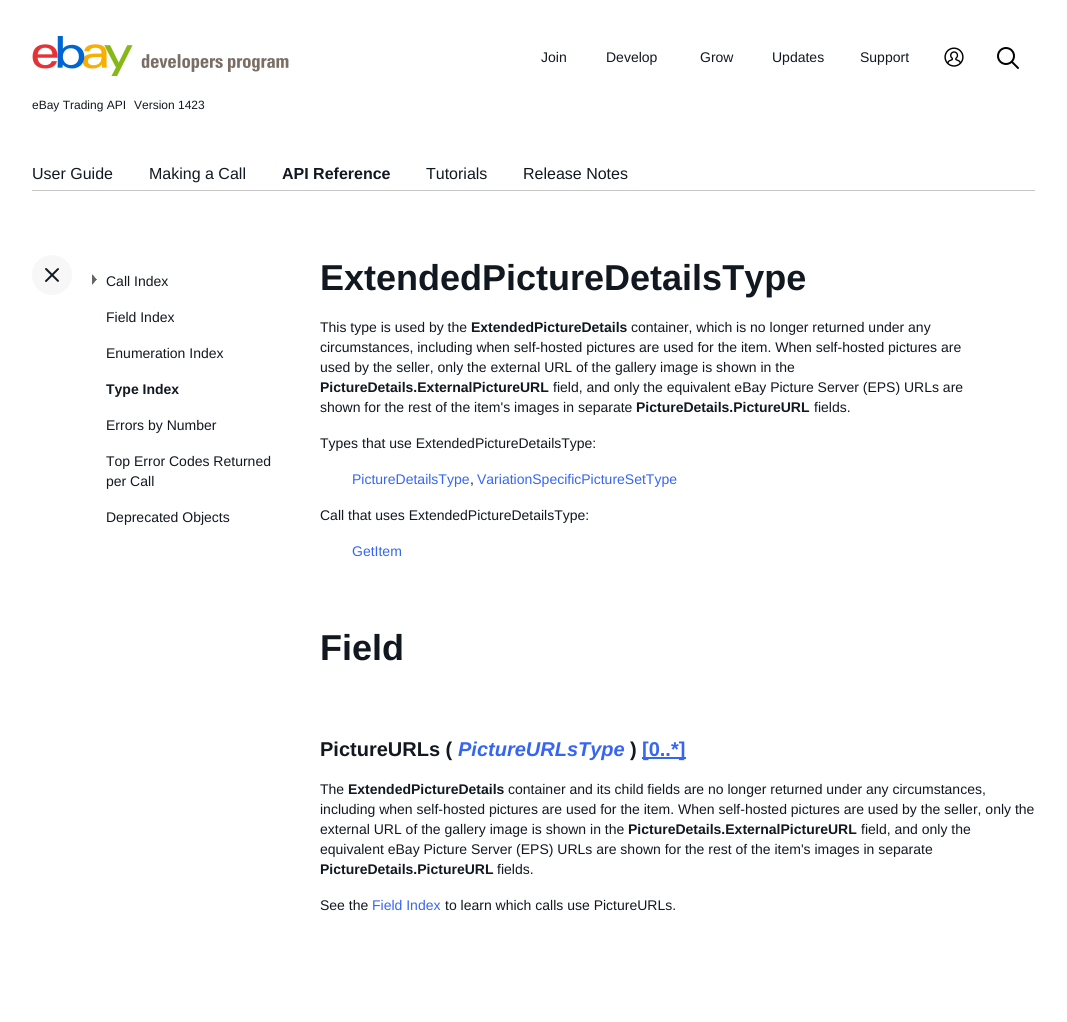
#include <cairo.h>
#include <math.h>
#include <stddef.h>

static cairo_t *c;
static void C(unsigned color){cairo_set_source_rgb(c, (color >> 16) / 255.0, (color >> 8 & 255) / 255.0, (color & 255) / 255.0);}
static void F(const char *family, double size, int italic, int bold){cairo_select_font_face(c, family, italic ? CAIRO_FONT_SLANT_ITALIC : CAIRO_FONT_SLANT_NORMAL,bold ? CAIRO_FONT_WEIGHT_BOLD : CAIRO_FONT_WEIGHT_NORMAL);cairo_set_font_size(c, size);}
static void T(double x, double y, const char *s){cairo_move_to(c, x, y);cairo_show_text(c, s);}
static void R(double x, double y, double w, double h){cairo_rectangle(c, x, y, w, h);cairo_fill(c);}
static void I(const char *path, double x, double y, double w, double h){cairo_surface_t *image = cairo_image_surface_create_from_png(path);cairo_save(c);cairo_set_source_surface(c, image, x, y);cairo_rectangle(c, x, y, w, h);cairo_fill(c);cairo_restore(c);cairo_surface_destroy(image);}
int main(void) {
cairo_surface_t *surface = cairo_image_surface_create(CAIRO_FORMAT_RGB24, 1067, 1022);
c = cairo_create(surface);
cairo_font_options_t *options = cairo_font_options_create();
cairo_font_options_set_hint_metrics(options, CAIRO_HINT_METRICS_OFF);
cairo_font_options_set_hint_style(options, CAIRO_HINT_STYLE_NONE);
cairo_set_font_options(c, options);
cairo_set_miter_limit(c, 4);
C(0xffffff);
cairo_paint(c);
I("1.png",32,36,257,40);
F("Liberation Sans",14,0,0);
C(0x111820);
T(541,62,"Join");
T(606,62,"Develop");
T(700,62,"Grow");
T(772,62,"Updates");
T(860,62,"Support");
I("2.png",944,47,20,20);
I("3.png",997,47,22,22);
F("Liberation Sans",12,0,0);
T(32,109,"eBay Trading API");
T(134,109,"Version 1423");
C(0xc7c7c7);
R(32,190,1003,1);
F("Liberation Sans",16,0,0);
C(0x111820);
T(32,179,"User Guide");
T(149,179,"Making a Call");
F("Liberation Sans",16,0,1);
T(282,179,"API Reference");
F("Liberation Sans",16,0,0);
T(426,179,"Tutorials");
T(523,179,"Release Notes");
C(0xf7f7f7);
cairo_new_path(c);
cairo_arc(c,52,275,20,0,2 * M_PI);
cairo_fill(c);
I("4.png",45,268,14,14);
I("5.png",92,274,5,11);
F("Liberation Sans",14,0,0);
C(0x111820);
T(106,286,"Call Index");
T(106,322,"Field Index");
T(106,358,"Enumeration Index");
F("Liberation Sans",14,0,1);
T(106,394,"Type Index");
F("Liberation Sans",14,0,0);
T(106,430,"Errors by Number");
T(106,466,"Top Error Codes Returned");
T(106,486,"per Call");
T(106,522,"Deprecated Objects");
F("Liberation Sans",36,0,1);
T(320,290,"ExtendedPictureDetailsType");
F("Liberation Sans",14,0,0);
T(320,332,"This type is used by the");
F("Liberation Sans",14,0,1);
T(471,332,"ExtendedPictureDetails");
F("Liberation Sans",14,0,0);
T(631,332,"container, which is no longer returned under any");
T(320,352,"circumstances, including when self-hosted pictures are used for the item. When self-hosted pictures are");
T(320,372,"used by the seller, only the external URL of the gallery image is shown in the");
F("Liberation Sans",14,0,1);
T(320,392,"PictureDetails.ExternalPictureURL");
F("Liberation Sans",14,0,0);
T(553,392,"field, and only the equivalent eBay Picture Server (EPS) URLs are");
T(320,412,"shown for the rest of the item's images in separate");
F("Liberation Sans",14,0,1);
T(636,412,"PictureDetails.PictureURL");
F("Liberation Sans",14,0,0);
T(814,412,"fields.");
T(320,448,"Types that use ExtendedPictureDetailsType:");
C(0x3665f3);
T(352,484,"PictureDetailsType");
C(0x111820);
T(470,484,",");
C(0x3665f3);
T(477,484,"VariationSpecificPictureSetType");
C(0x111820);
T(320,520,"Call that uses ExtendedPictureDetailsType:");
C(0x3665f3);
T(352,556,"GetItem");
F("Liberation Sans",36,0,1);
C(0x111820);
T(320,660,"Field");
F("Liberation Sans",20,0,1);
T(320,756,"PictureURLs (");
F("Liberation Sans",20,1,1);
C(0x3665f3);
T(458,756,"PictureURLsType");
F("Liberation Sans",20,0,1);
C(0x111820);
T(630,756,")");
C(0x3665f3);
R(642,757,44,2);
T(642,756,"[0..*]");
F("Liberation Sans",14,0,0);
C(0x111820);
T(320,794,"The");
F("Liberation Sans",14,0,1);
T(348,794,"ExtendedPictureDetails");
F("Liberation Sans",14,0,0);
T(508,794,"container and its child fields are no longer returned under any circumstances,");
T(320,814,"including when self-hosted pictures are used for the item. When self-hosted pictures are used by the seller, only the");
T(320,834,"external URL of the gallery image is shown in the");
F("Liberation Sans",14,0,1);
T(628,834,"PictureDetails.ExternalPictureURL");
F("Liberation Sans",14,0,0);
T(861,834,"field, and only the");
T(320,854,"equivalent eBay Picture Server (EPS) URLs are shown for the rest of the item's images in separate");
F("Liberation Sans",14,0,1);
T(320,874,"PictureDetails.PictureURL");
F("Liberation Sans",14,0,0);
T(497,874,"fields.");
T(320,910,"See the");
C(0x3665f3);
T(372,910,"Field Index");
C(0x111820);
T(445,910,"to learn which calls use PictureURLs.");
cairo_surface_write_to_png(surface, "o.png");
cairo_font_options_destroy(options);
cairo_destroy(c);
cairo_surface_destroy(surface);
return 0;
}
